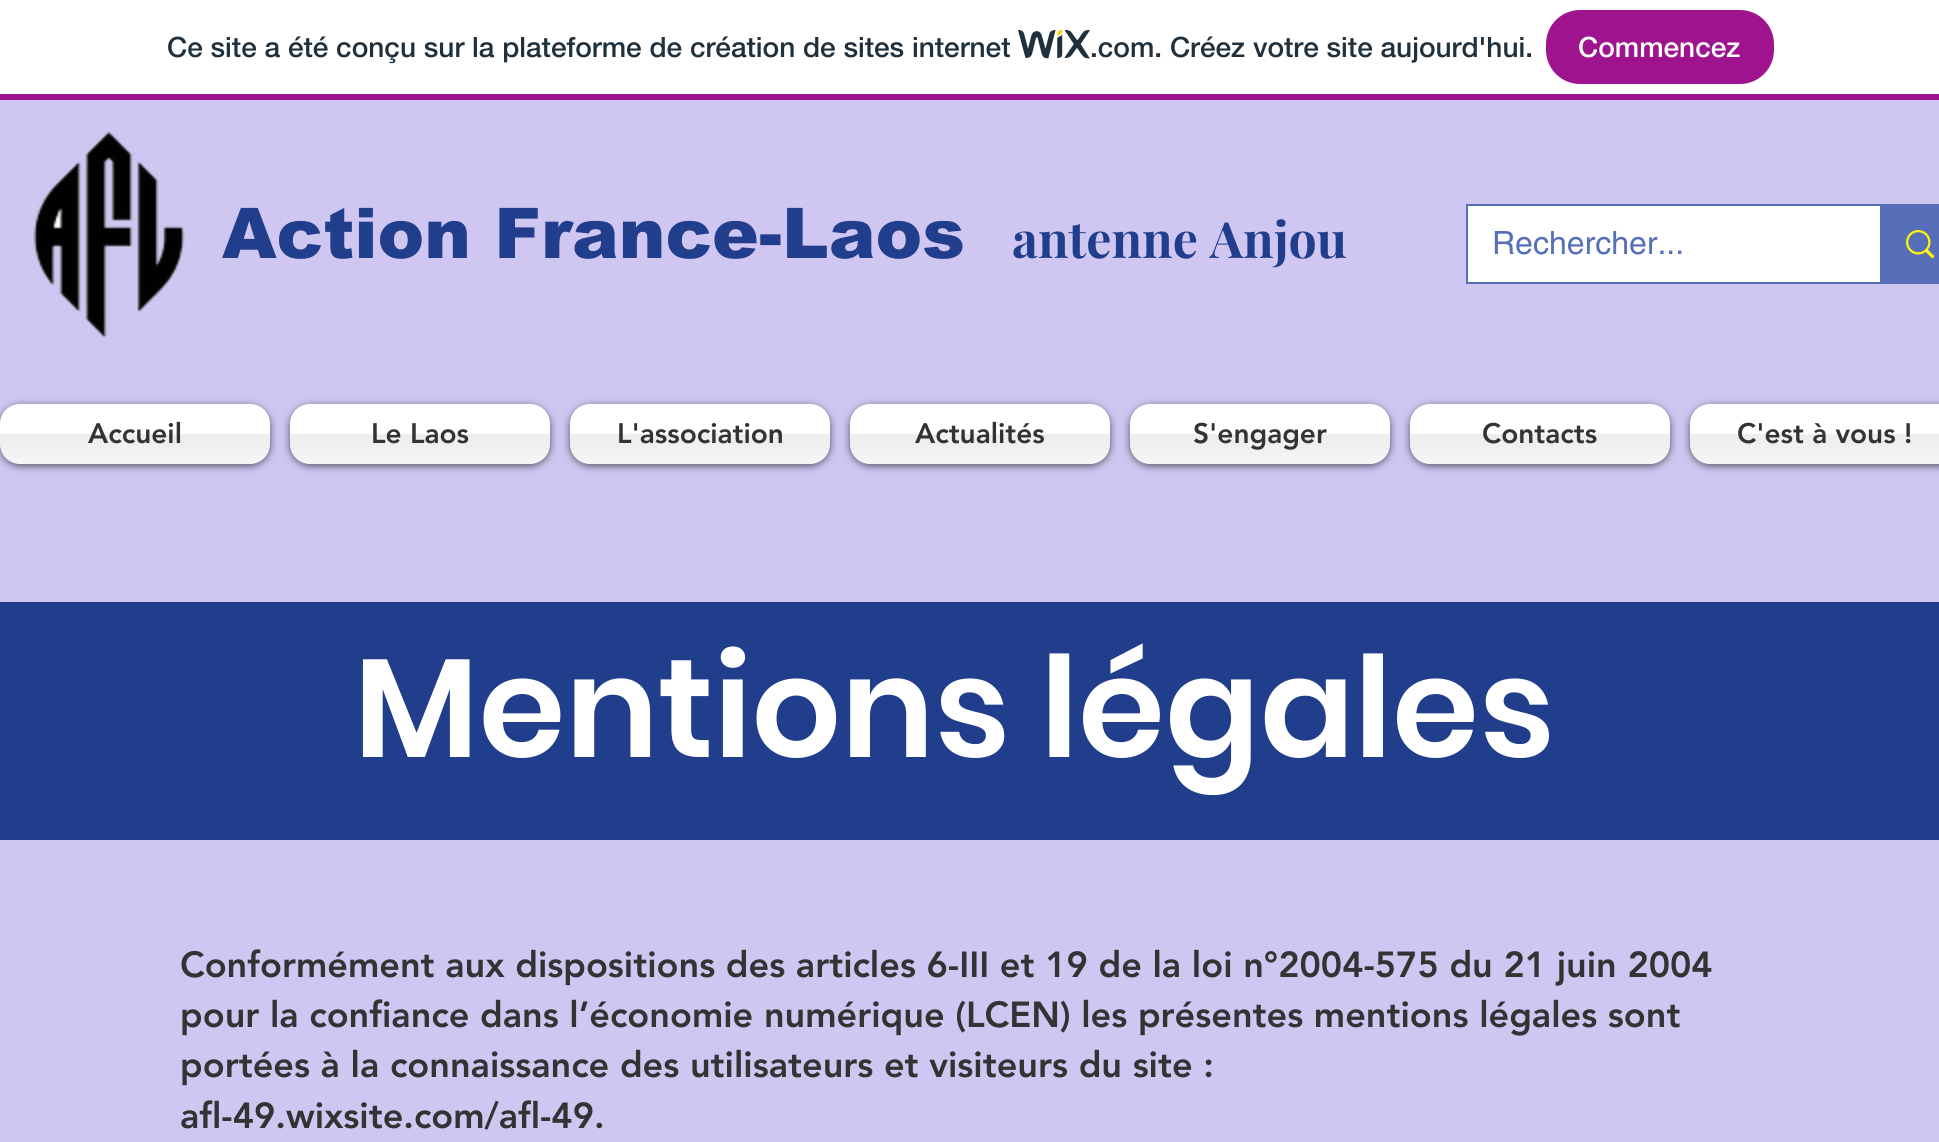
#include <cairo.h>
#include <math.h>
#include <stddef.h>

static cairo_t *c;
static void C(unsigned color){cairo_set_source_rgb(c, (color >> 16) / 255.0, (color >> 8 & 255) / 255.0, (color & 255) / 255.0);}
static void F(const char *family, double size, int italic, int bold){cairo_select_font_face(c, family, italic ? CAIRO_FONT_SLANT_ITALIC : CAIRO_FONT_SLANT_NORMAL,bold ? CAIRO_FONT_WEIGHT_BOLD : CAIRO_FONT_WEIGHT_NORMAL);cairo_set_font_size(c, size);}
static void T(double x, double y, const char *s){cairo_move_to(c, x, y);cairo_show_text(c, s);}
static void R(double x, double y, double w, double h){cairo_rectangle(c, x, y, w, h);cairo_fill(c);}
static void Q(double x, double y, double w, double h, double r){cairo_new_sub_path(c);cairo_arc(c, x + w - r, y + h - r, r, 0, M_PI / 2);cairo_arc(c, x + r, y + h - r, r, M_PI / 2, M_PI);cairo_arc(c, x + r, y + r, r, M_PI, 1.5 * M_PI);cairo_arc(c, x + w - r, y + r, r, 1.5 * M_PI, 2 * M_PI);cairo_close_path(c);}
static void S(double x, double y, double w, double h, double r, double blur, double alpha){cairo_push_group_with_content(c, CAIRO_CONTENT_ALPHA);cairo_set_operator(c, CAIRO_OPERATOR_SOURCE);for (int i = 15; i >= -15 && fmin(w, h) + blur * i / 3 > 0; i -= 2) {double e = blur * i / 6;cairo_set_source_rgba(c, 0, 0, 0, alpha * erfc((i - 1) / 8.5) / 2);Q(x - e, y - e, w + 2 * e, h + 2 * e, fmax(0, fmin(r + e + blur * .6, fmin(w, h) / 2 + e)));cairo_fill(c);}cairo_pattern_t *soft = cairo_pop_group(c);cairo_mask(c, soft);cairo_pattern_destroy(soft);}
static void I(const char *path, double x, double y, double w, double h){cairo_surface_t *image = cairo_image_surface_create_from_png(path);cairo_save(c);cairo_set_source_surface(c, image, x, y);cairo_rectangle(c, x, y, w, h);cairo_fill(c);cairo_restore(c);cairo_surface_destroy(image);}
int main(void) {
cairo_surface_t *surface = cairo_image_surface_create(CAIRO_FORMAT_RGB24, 1939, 1142);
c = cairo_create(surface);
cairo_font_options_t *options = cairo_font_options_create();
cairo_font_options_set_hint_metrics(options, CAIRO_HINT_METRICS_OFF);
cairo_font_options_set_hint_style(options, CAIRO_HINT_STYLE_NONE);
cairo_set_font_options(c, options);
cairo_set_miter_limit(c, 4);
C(0xffffff);
cairo_paint(c);
C(0xa0138e);
R(0,94,1939,6);
F("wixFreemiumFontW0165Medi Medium",28,0,0);
C(0x20303c);
T(167,57,"Ce site a été conçu sur la plateforme de création de sites internet");
I("1.png",1018,30,72,29);
T(1090,57,".com. Créez votre site aujourd'hui.");
C(0xa0138e);
Q(1547,11,226,72,33);
cairo_fill_preserve(c);
cairo_stroke(c);
C(0xffffff);
T(1578,57,"Commencez");
C(0xcfc7f2);
R(0,100,1939,1042);
I("2.png",33,131,152,208);
F("arial Black",70,0,0);
C(0x213e8c);
T(222,258,"Action France-Laos");
F("Playfair Display",50,0,1);
T(1012,258,"antenne Anjou");
cairo_rectangle(c,1467,205,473,78);
C(0x566fb8);
cairo_stroke(c);
C(0xffffff);
R(1468,206,412,76);
F("helvetica",32,0,0);
C(0x566fb8);
T(1492,254,"Rechercher...");
R(1880,206,59,76);
I("3.png",1906,230,28,28);
C(0x000000);
S(0,406,270,60,20,4,.6);
C(0xffffff);
Q(0,404,270,60,20);
cairo_fill(c);
I("4.png",0,405,270,59);
F("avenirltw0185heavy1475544 Black",28,0,0);
C(0x333333);
T(88,443,"Accueil");
C(0x000000);
S(290,406,260,60,20,4,.6);
C(0xffffff);
Q(290,404,260,60,20);
cairo_fill(c);
I("5.png",290,405,260,59);
C(0x333333);
T(371,443,"Le Laos");
C(0x000000);
S(570,406,260,60,20,4,.6);
C(0xffffff);
Q(570,404,260,60,20);
cairo_fill(c);
I("5.png",570,405,260,59);
C(0x333333);
T(617,443,"L'association");
C(0x000000);
S(850,406,260,60,20,4,.6);
C(0xffffff);
Q(850,404,260,60,20);
cairo_fill(c);
I("5.png",850,405,260,59);
C(0x333333);
T(915,443,"Actualités");
C(0x000000);
S(1130,406,260,60,20,4,.6);
C(0xffffff);
Q(1130,404,260,60,20);
cairo_fill(c);
I("5.png",1130,405,260,59);
C(0x333333);
T(1193,443,"S'engager");
C(0x000000);
S(1410,406,260,60,20,4,.6);
C(0xffffff);
Q(1410,404,260,60,20);
cairo_fill(c);
I("5.png",1410,405,260,59);
C(0x333333);
T(1482,443,"Contacts");
C(0x000000);
S(1690,406,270,60,20,4,.6);
C(0xffffff);
Q(1690,404,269,60,20);
cairo_fill(c);
I("6.png",1690,405,249,59);
C(0x333333);
T(1737,443,"C'est à vous !");
C(0x213e8c);
R(0,602,1939,238);
F("Poppins SemiBold",140,0,0);
C(0xffffff);
T(354,757,"Mentions légales");
F("avenirltw0185heavy1475544 Black",36,0,0);
C(0x333333);
T(180,977,"Conformément aux dispositions des articles 6-III et 19 de la loi n°2004-575 du 21 juin 2004");
T(180,1027,"pour la confiance dans l’économie numérique (LCEN) les présentes mentions légales sont");
T(180,1077,"portées à la connaissance des utilisateurs et visiteurs du site :");
T(180,1128,"afl-49.wixsite.com/afl-49.");
cairo_surface_write_to_png(surface, "o.png");
cairo_font_options_destroy(options);
cairo_destroy(c);
cairo_surface_destroy(surface);
return 0;
}
